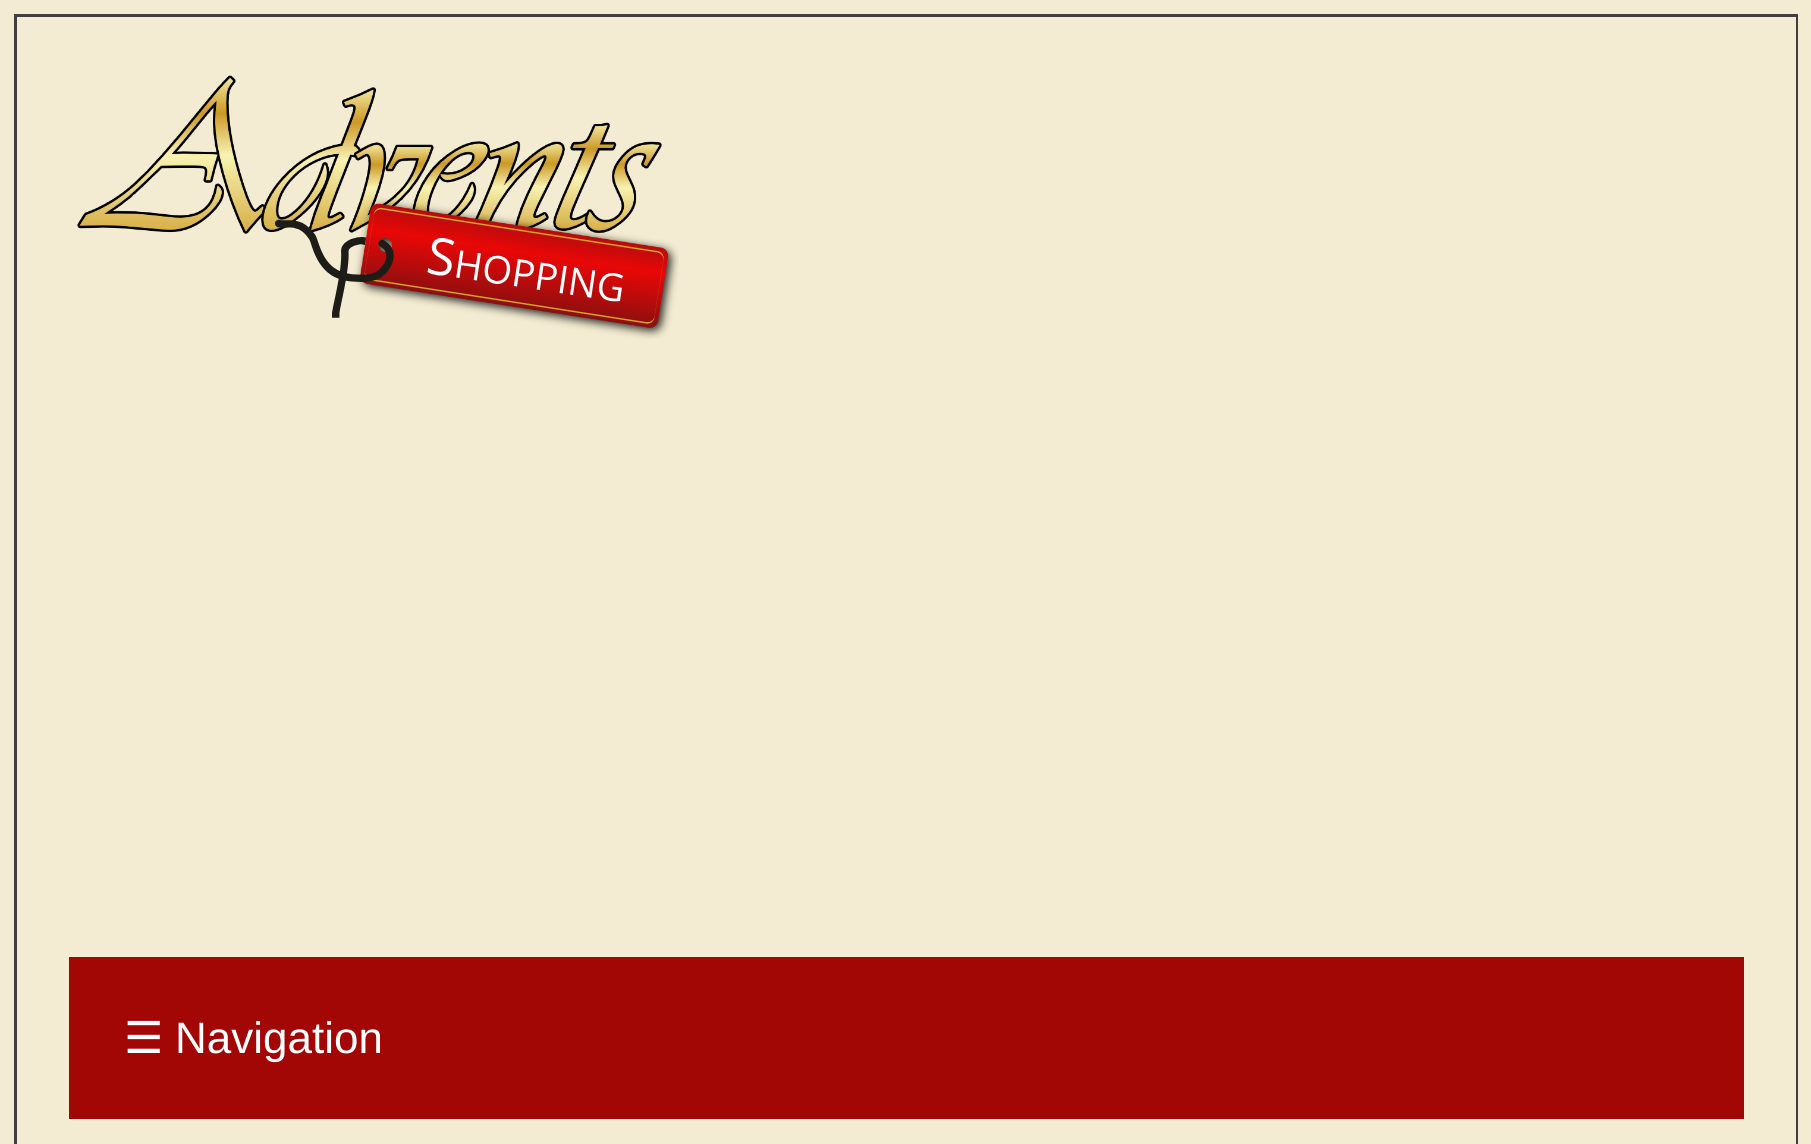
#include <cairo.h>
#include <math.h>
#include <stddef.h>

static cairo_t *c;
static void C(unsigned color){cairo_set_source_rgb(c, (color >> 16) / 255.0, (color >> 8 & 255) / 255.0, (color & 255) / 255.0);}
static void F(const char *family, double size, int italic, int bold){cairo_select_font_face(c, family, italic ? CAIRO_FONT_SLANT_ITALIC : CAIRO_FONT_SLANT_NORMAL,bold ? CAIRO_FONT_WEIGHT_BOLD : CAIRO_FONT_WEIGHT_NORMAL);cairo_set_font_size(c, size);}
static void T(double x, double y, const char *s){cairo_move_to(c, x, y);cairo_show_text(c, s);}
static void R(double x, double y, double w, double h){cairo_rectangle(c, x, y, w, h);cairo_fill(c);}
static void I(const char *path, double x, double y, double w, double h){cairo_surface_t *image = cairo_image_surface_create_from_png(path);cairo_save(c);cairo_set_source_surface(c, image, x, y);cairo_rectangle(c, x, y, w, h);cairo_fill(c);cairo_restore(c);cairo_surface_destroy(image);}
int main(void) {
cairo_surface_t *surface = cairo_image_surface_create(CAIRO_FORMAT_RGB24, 1811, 1144);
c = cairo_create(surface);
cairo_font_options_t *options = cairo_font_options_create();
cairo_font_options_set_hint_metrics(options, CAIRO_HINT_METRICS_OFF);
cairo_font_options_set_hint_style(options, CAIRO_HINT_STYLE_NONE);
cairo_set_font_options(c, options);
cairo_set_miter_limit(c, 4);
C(0xf3ecd2);
cairo_paint(c);
cairo_rectangle(c,15.5,15.5,1782,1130);
C(0x3f3f3f);
cairo_set_line_width(c,3);
cairo_stroke(c);
cairo_rectangle(c,7,7,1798,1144);
C(0xf3ecd2);
cairo_set_line_width(c,14);
cairo_stroke(c);
I("1.png",77,75,602,264);
C(0xa20705);
R(69,957,1675,162);
F("DejaVu Sans",44,0,0);
C(0xffffff);
T(124,1053,"☰");
F("Liberation Sans",44,0,0);
T(175,1053,"Navigation");
cairo_surface_write_to_png(surface, "o.png");
cairo_font_options_destroy(options);
cairo_destroy(c);
cairo_surface_destroy(surface);
return 0;
}
